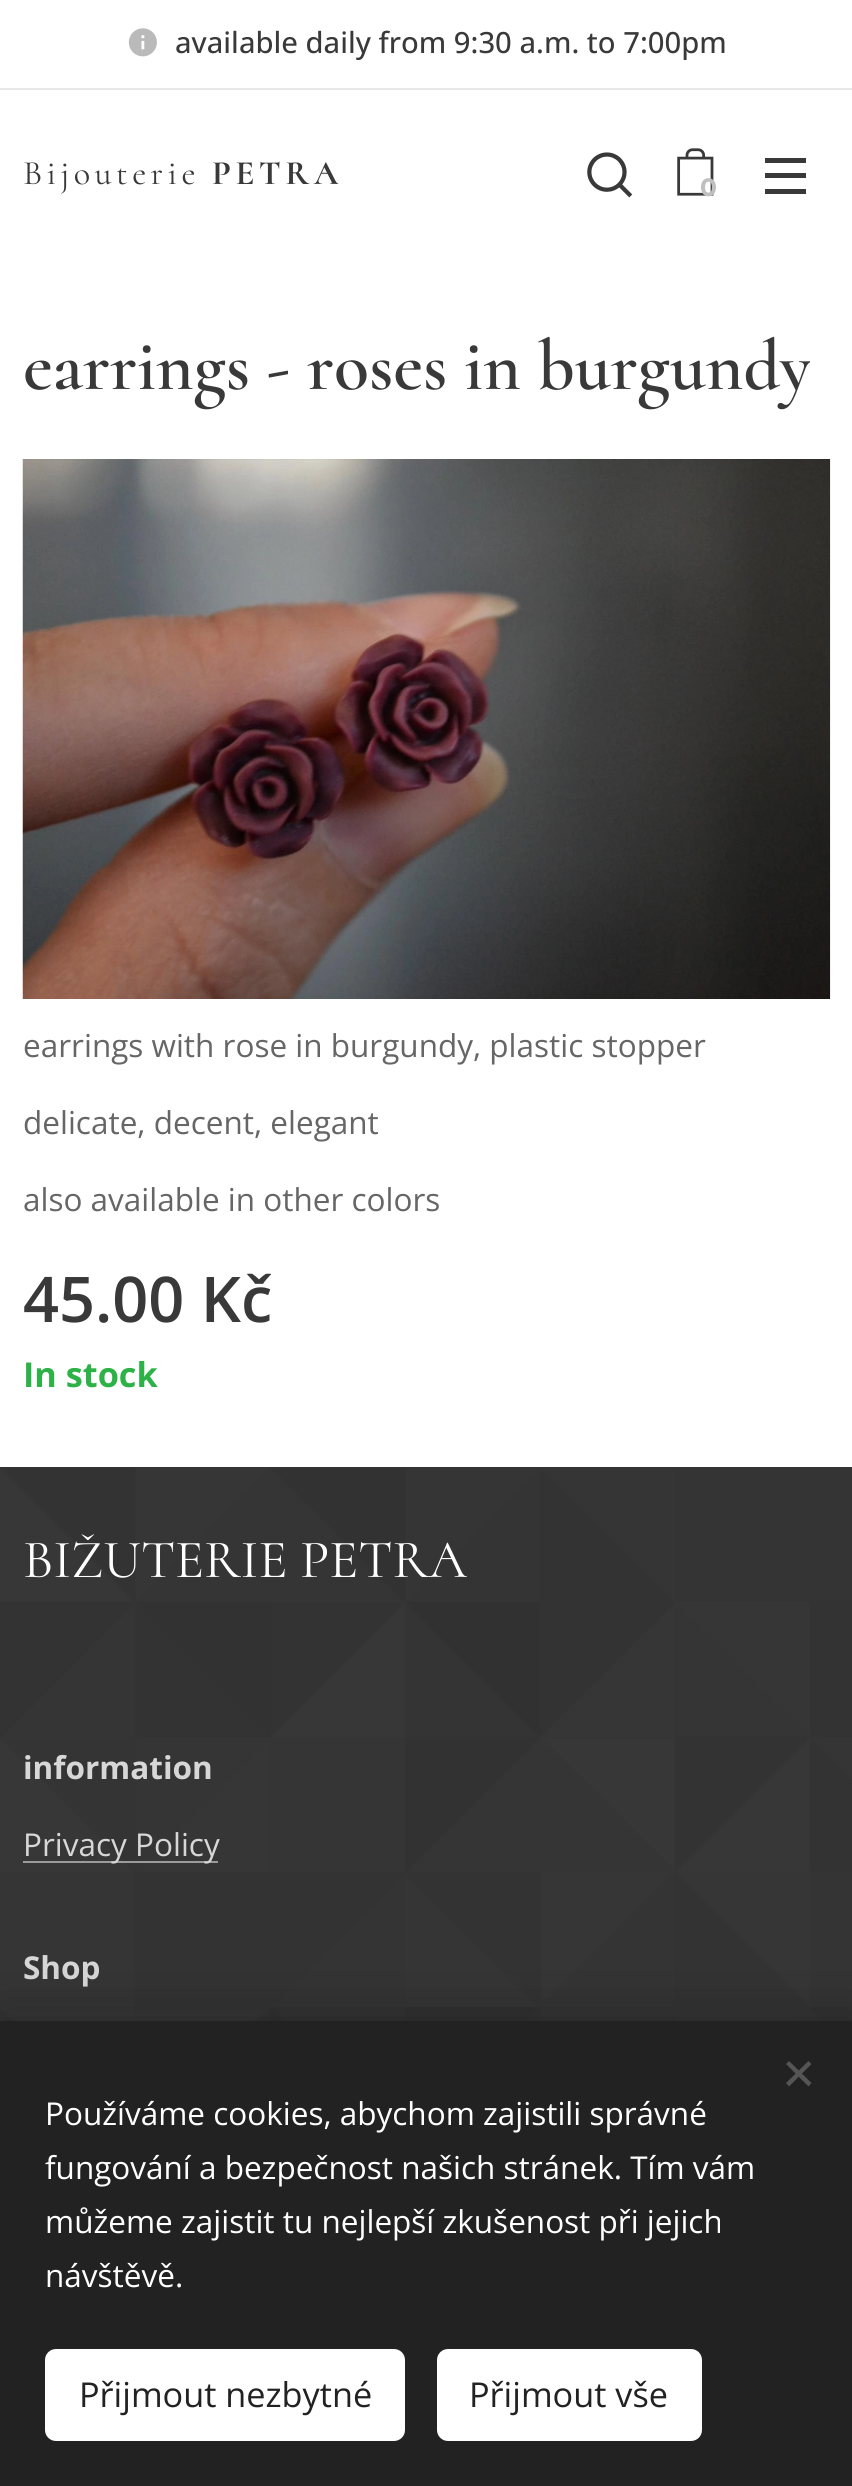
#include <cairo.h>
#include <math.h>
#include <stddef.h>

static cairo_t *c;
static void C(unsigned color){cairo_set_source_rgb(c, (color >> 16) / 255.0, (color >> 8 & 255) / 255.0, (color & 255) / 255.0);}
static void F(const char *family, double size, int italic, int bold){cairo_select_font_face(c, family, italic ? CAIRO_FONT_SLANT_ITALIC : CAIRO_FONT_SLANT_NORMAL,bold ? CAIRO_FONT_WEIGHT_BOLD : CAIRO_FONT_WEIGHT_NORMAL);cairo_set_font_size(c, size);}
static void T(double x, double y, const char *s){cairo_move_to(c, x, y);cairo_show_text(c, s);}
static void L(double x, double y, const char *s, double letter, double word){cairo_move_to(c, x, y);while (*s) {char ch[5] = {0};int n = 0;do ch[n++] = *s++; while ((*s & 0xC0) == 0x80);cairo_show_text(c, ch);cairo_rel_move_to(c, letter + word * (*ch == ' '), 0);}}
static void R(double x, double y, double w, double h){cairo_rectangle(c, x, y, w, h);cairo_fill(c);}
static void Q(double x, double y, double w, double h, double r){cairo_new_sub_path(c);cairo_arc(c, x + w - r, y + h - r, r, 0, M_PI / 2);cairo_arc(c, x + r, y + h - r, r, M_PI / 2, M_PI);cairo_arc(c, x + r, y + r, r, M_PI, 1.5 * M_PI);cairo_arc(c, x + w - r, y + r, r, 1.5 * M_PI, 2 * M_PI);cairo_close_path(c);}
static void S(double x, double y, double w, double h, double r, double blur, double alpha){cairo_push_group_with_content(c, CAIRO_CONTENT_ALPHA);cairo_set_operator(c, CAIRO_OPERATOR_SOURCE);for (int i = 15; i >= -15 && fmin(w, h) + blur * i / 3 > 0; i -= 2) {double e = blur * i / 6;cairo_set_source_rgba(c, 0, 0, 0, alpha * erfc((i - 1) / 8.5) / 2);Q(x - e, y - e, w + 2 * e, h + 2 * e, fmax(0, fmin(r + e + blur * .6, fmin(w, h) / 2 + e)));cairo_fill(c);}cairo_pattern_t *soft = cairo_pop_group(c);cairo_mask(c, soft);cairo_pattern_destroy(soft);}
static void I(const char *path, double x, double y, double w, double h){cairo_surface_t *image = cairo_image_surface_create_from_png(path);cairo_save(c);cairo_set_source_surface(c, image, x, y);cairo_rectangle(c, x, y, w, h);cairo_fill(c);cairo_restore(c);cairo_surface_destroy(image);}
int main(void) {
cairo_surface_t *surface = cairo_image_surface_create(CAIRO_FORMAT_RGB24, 852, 2486);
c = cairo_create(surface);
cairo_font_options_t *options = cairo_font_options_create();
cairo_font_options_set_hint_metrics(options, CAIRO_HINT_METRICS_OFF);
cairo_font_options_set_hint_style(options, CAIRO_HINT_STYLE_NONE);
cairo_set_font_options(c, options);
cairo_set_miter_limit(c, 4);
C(0xffffff);
cairo_paint(c);
I("1.png",128,28,29,29);
F("Open Sans Medium",29.25,0,0);
C(0x393939);
T(175,53,"available daily from 9:30 a.m. to 7:00pm");
C(0xe8e8e8);
R(0,88,852,2);
F("Cormorant",34.25,0,0);
C(0x393939);
L(23,184,"Bijouterie",4.5,0);
F("Cormorant",34.25,0,1);
L(212,184,"PETRA",4.5,0);
I("2.png",587,152,46,46);
I("3.png",677,148,37,48);
F("Montserrat",25,0,1);
C(0xc0c0c0);
T(700,196,"0");
C(0x393939);
R(765,173,41,5);
R(765,158,41,5);
R(765,189,41,5);
cairo_save(c);
cairo_rectangle(c,23,297,787,140);
cairo_clip(c);
F("Cormorant SemiBold",72,0,0);
T(23,389,"earrings - roses in burgundy");
cairo_restore(c);
I("4.png",22,459,809,540);
F("Open Sans",31.5,0,0);
C(0x666666);
T(23,1057,"earrings with rose in burgundy, plastic stopper");
T(23,1134,"delicate, decent, elegant");
T(23,1211,"also available in other colors");
F("Open Sans SemiBold",63,0,0);
C(0x393939);
T(23,1322,"45.00 Kč");
F("Open Sans",34.25,0,1);
C(0x2db247);
T(23,1387,"In stock");
I("5.png",0,1467,852,554);
F("Cormorant",54,0,0);
C(0xffffff);
T(23,1577,"BIŽUTERIE PETRA");
F("Open Sans",31.5,0,1);
C(0xd7d7d7);
T(23,1779,"information");
cairo_set_source_rgba(c,1,1,1,0.5);
R(23,1861,195,2);
F("Open Sans",31.5,0,0);
C(0xd7d7d7);
T(23,1856,"Privacy Policy");
F("Open Sans",31.5,0,1);
T(23,1979,"Shop");
C(0x000000);
S(0,2021,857,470,0,28,.33);
C(0x222222);
R(0,2021,852,465);
C(0x555555);
cairo_new_path(c);
cairo_move_to(c,786,2083);
cairo_line_to(c,808.5,2061);
cairo_line_to(c,811.5,2064);
cairo_line_to(c,789,2086.5);
cairo_close_path(c);
cairo_fill(c);
cairo_new_path(c);
cairo_move_to(c,789,2061);
cairo_line_to(c,811.5,2083);
cairo_line_to(c,808.5,2086.5);
cairo_line_to(c,786,2064);
cairo_close_path(c);
cairo_fill(c);
F("Open Sans",31.5,0,0);
C(0xffffff);
T(45,2125,"Používáme cookies, abychom zajistili správné");
T(45,2179,"fungování a bezpečnost našich stránek. Tím vám");
T(45,2233,"můžeme zajistit tu nejlepší zkušenost při jejich");
T(45,2287,"návštěvě.");
Q(45,2349,360,92,11);
cairo_fill(c);
F("Open Sans",34.25,0,0);
C(0x222222);
T(79,2407,"Přijmout nezbytné");
C(0xffffff);
Q(437,2349,265,92,11);
cairo_fill(c);
C(0x222222);
T(469,2407,"Přijmout vše");
cairo_surface_write_to_png(surface, "o.png");
cairo_font_options_destroy(options);
cairo_destroy(c);
cairo_surface_destroy(surface);
return 0;
}
